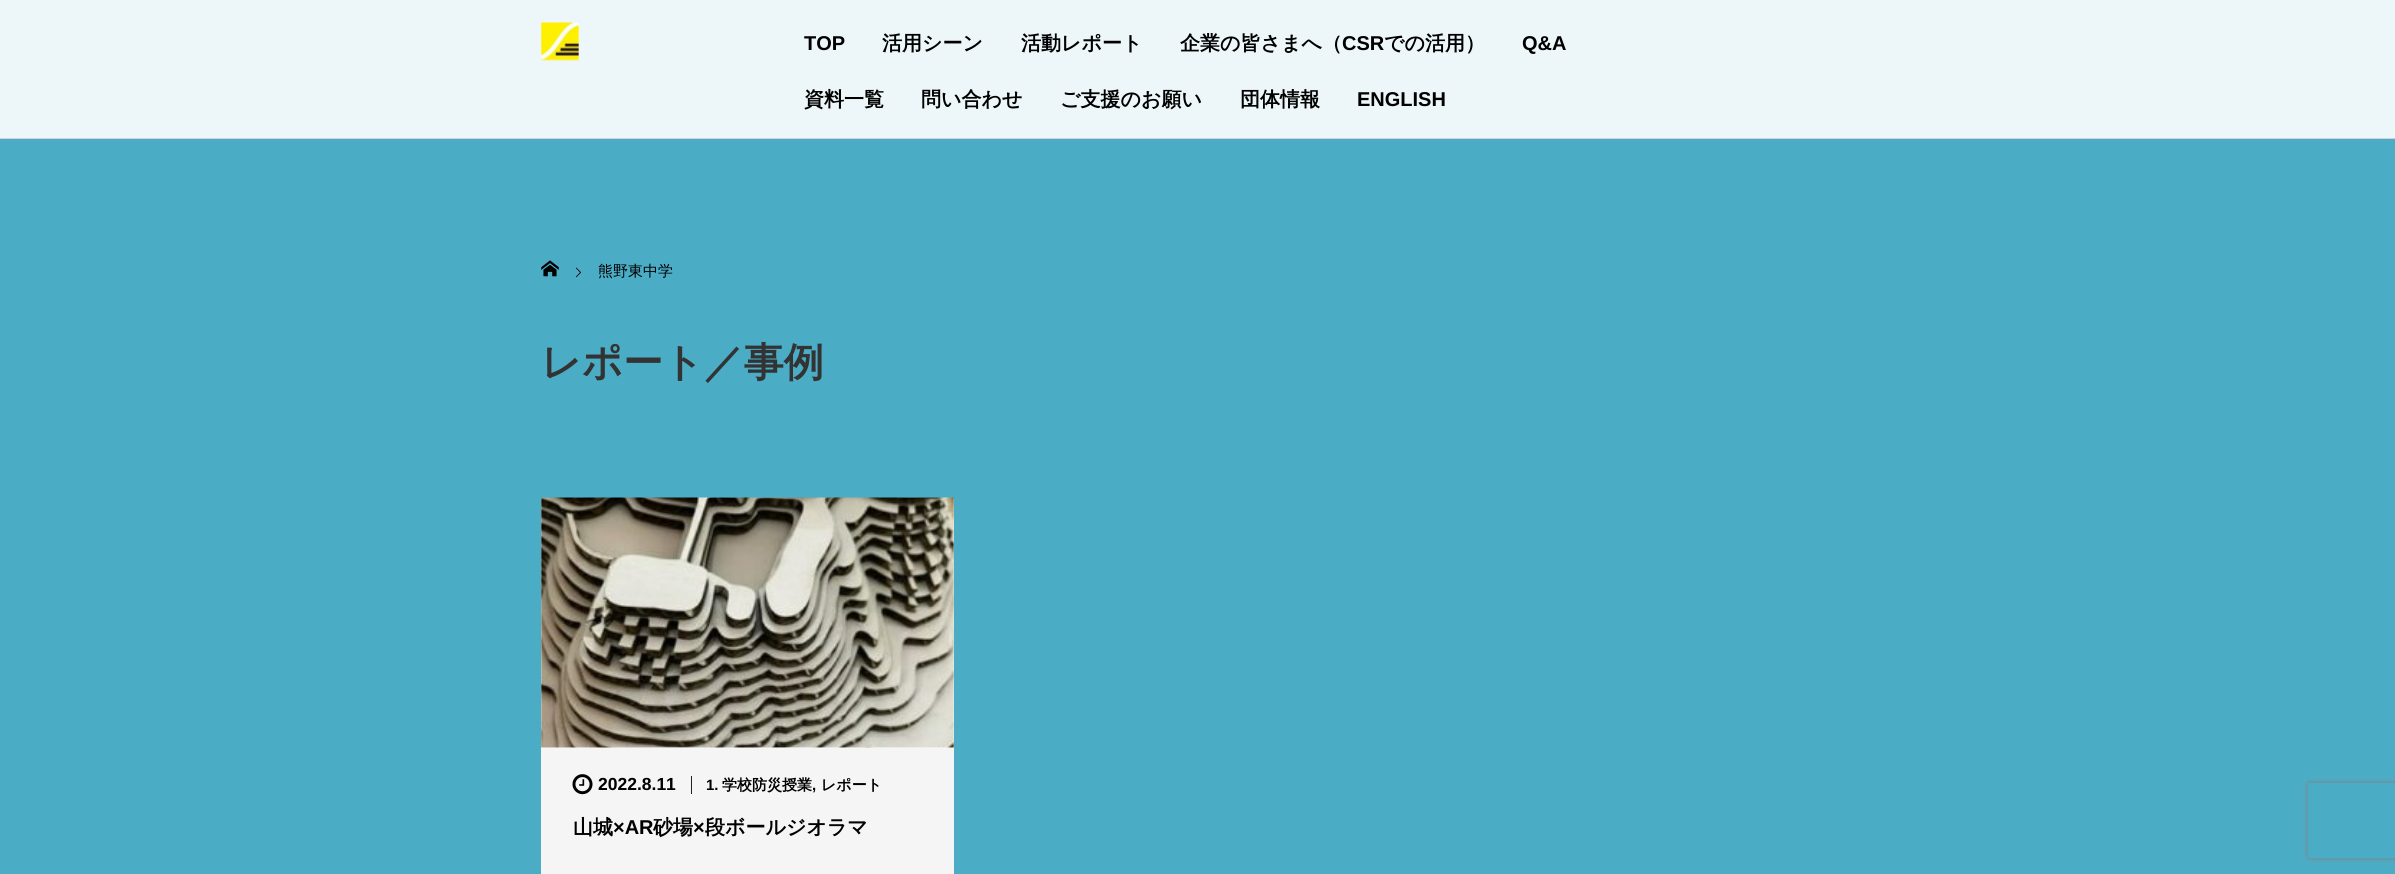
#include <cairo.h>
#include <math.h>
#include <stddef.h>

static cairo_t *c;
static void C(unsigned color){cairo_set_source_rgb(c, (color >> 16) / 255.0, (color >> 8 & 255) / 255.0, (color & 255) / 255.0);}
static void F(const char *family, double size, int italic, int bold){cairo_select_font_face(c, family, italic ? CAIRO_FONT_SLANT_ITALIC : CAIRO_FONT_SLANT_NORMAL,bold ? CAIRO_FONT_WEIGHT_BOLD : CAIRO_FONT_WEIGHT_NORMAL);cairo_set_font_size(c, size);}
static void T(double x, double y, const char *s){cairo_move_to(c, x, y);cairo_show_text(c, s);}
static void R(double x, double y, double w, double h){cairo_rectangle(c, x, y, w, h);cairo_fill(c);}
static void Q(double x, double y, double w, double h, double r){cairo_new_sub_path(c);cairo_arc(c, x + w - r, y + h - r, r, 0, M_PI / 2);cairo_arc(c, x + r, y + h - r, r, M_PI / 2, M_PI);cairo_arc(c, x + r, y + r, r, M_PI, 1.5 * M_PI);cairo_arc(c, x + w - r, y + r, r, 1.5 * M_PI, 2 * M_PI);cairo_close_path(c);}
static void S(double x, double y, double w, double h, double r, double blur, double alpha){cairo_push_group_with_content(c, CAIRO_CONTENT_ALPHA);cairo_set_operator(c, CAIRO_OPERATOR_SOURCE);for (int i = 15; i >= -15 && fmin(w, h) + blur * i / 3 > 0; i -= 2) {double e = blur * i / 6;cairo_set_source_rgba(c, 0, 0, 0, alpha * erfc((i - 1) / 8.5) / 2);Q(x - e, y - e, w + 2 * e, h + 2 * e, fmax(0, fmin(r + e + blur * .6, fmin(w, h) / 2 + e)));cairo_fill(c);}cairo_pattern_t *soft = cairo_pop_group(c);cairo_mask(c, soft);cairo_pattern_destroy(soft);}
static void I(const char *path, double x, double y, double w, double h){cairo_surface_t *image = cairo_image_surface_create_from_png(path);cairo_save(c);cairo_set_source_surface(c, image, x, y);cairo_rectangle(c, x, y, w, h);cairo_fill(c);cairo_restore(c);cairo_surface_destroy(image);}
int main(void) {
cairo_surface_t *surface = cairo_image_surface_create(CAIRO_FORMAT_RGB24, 2395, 874);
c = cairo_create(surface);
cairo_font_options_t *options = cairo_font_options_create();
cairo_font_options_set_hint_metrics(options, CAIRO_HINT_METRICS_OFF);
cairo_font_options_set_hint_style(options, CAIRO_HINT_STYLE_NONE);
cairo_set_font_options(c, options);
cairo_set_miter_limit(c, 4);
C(0x4bacc6);
cairo_paint(c);
C(0xedf7f9);
R(0,0,2395,138);
C(0xd3d3d3);
R(0,138,2395,1);
I("1.png",541,22,38,39);
F("Liberation Sans",20,0,1);
C(0x000000);
T(804,50,"TOP");
F("WenQuanYi Zen Hei",20,0,1);
T(882,50,"活用シーン");
T(1021,50,"活動レポート");
T(1180,50,"企業の皆さまへ（");
F("Liberation Sans",20,0,1);
T(1342,50,"CSR");
F("WenQuanYi Zen Hei",20,0,1);
T(1384,50,"での活用）");
F("Liberation Sans",20,0,1);
T(1522,50,"Q&A");
F("WenQuanYi Zen Hei",20,0,1);
T(804,106,"資料一覧");
T(921,106,"問い合わせ");
T(1060,106,"ご支援のお願い");
T(1240,106,"団体情報");
F("Liberation Sans",20,0,1);
T(1357,106,"ENGLISH");
I("2.png",541,260,18,17);
I("3.png",575,267,6,11);
F("WenQuanYi Zen Hei Medium",15,0,0);
T(598,276,"熊野東中学");
F("WenQuanYi Zen Hei",40,0,1);
C(0x333333);
T(541,376,"レポート／事例");
C(0xf5f5f5);
R(541,748,413,126);
C(0xffffff);
R(541,498,413,250);
I("4.png",541,497,413,251);
I("5.png",572,774,21,21);
F("Liberation Sans",17.5,0,1);
C(0x000000);
T(598,790,"2022.8.11");
F("Liberation Sans",15,0,1);
T(706,790,"1.");
C(0x222222);
R(691,776,1,18);
F("WenQuanYi Zen Hei",15,0,1);
C(0x000000);
T(722,790,"学校防災授業");
F("Liberation Sans",15,0,1);
T(812,790,",");
F("WenQuanYi Zen Hei",15,0,1);
T(821,790,"レポート");
F("WenQuanYi Zen Hei",20,0,1);
T(573,834,"山城");
F("Liberation Sans",20,0,1);
T(613,834,"×AR");
F("WenQuanYi Zen Hei",20,0,1);
T(653,834,"砂場");
F("Liberation Sans",20,0,1);
T(693,834,"×");
F("WenQuanYi Zen Hei",20,0,1);
T(705,834,"段ボールジオラマ");
cairo_save(c);
cairo_set_fill_rule(c,CAIRO_FILL_RULE_EVEN_ODD);
cairo_new_path(c);
cairo_move_to(c,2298,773);
cairo_line_to(c,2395,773);
cairo_line_to(c,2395,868);
cairo_line_to(c,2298,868);
cairo_close_path(c);
cairo_move_to(c,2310.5,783);
cairo_line_to(c,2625.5,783);
cairo_curve_to(c,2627,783,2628,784,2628,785.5);
cairo_line_to(c,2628,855.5);
cairo_curve_to(c,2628,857,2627,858,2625.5,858);
cairo_line_to(c,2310.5,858);
cairo_curve_to(c,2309,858,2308,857,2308,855.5);
cairo_line_to(c,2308,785.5);
cairo_curve_to(c,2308,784,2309,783,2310.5,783);
cairo_close_path(c);
cairo_clip(c);
C(0x808080);
S(2308,783,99,75,2.5,3,1);
cairo_restore(c);
cairo_surface_write_to_png(surface, "o.png");
cairo_font_options_destroy(options);
cairo_destroy(c);
cairo_surface_destroy(surface);
return 0;
}
